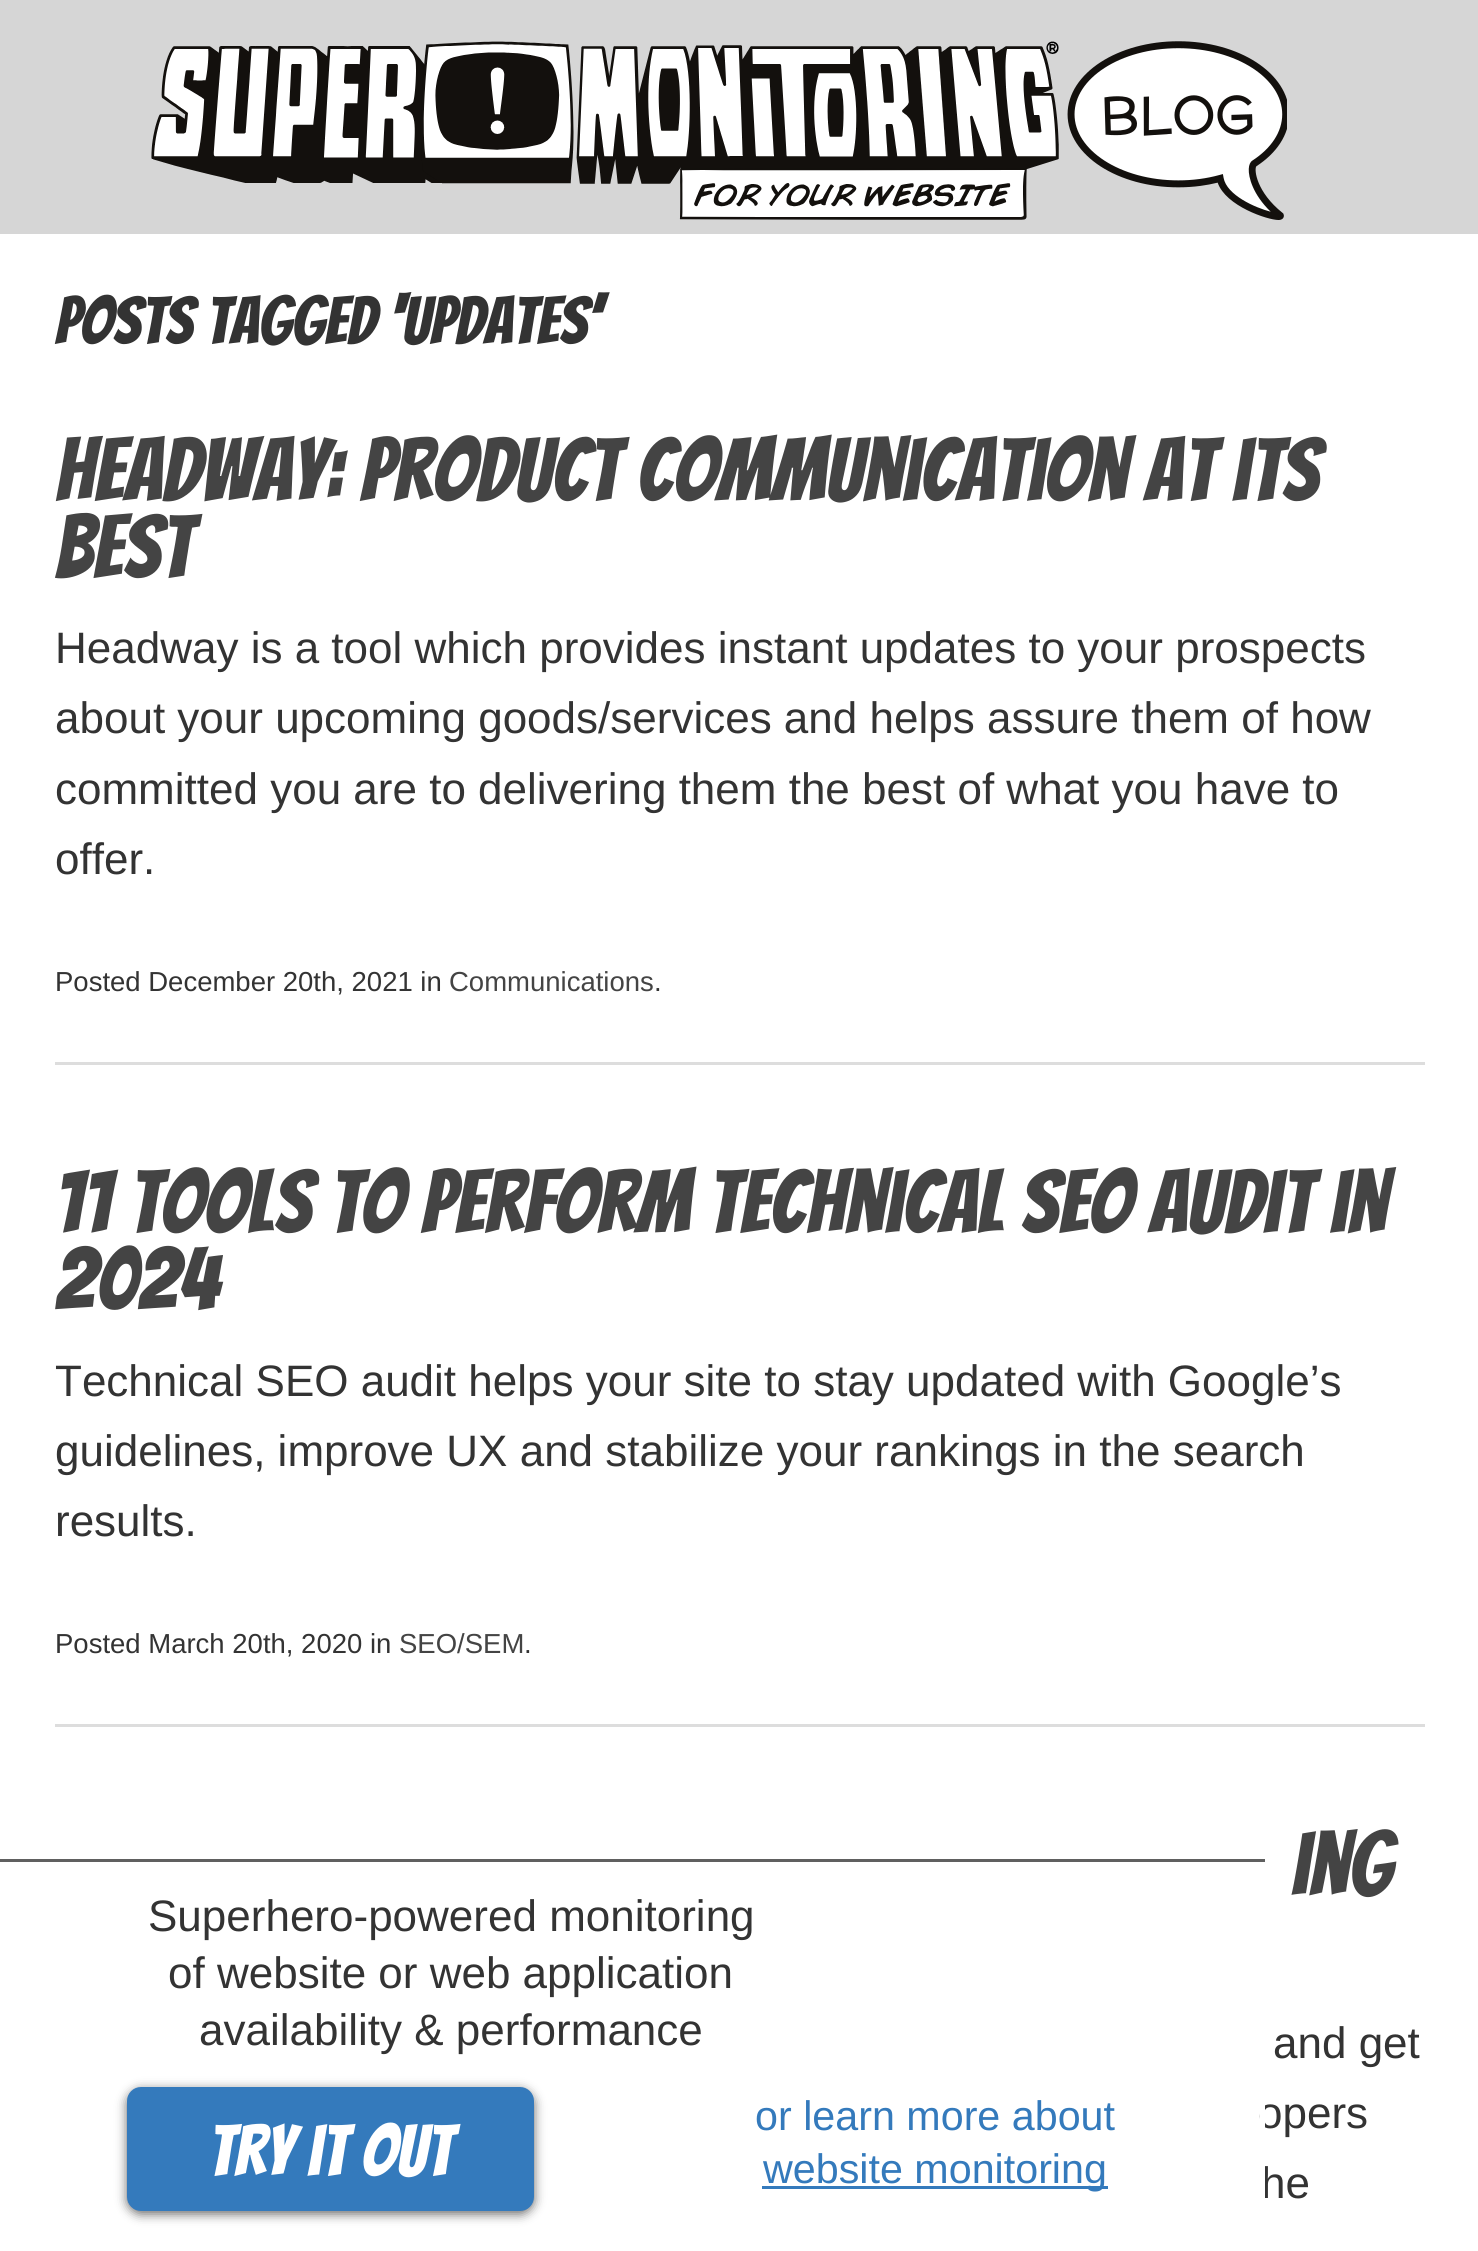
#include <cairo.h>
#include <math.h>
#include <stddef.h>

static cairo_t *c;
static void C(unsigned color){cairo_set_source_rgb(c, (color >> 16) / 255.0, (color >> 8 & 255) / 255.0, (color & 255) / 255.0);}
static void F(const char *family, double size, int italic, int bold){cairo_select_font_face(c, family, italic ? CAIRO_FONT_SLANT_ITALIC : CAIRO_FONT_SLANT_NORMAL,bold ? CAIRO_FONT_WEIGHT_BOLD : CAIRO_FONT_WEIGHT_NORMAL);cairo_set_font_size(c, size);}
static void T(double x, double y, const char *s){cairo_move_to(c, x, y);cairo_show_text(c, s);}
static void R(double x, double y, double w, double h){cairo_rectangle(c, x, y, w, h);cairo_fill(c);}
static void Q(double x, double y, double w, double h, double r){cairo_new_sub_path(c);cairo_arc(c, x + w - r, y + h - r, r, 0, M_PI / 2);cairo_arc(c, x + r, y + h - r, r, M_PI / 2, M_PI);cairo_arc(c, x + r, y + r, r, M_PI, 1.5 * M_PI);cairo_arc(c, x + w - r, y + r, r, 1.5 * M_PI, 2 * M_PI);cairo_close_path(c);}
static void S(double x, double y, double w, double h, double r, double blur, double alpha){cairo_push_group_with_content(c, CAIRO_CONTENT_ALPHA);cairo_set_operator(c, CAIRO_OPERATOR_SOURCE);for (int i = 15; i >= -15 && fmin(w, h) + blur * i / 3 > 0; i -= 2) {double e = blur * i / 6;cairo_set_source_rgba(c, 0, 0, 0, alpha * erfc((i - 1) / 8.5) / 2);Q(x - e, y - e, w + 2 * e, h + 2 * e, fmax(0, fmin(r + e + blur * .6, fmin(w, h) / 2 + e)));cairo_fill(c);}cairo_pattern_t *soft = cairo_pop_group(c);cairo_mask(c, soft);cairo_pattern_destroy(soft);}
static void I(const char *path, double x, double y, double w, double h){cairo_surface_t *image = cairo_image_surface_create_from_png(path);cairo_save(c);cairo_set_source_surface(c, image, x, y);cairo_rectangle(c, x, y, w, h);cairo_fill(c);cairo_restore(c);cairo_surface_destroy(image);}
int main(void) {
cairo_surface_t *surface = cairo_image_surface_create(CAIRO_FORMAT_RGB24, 1478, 2251);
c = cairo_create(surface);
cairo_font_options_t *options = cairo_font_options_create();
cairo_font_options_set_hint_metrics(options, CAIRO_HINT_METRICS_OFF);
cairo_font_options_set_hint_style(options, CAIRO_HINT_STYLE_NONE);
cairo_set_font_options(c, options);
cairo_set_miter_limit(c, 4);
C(0xffffff);
cairo_paint(c);
C(0xd6d6d6);
R(0,0,1478,234);
I("1.png",151,41,908,179);
I("2.png",1067,41,220,179);
F("Bangers",66,0,0);
C(0x333333);
T(55,344,"Posts Tagged ‘updates’");
C(0xdddddd);
R(55,1062,1370,3);
F("Bangers",88,0,0);
C(0x444444);
T(55,501,"Headway: Product communication at its");
T(55,578,"best");
F("Arimo",44,0,0);
C(0x333333);
T(55,663,"Headway is a tool which provides instant updates to your prospects");
T(55,733,"about your upcoming goods/services and helps assure them of how");
T(55,804,"committed you are to delivering them the best of what you have to");
T(55,874,"offer.");
F("Arimo",27.5,0,0);
T(55,991,"Posted December 20th, 2021 in");
C(0x444444);
T(449,991,"Communications");
C(0x333333);
T(654,991,".");
C(0xdddddd);
R(55,1724,1370,3);
F("Bangers",88,0,0);
C(0x444444);
T(55,1233,"11 Tools to Perform Technical SEO Audit in");
T(55,1310,"2024");
F("Arimo",44,0,0);
C(0x333333);
T(55,1396,"Technical SEO audit helps your site to stay updated with Google’s");
T(55,1466,"guidelines, improve UX and stabilize your rankings in the search");
T(55,1536,"results.");
F("Arimo",27.5,0,0);
T(55,1653,"Posted March 20th, 2020 in");
C(0x444444);
T(399,1653,"SEO/SEM");
C(0x333333);
T(524,1653,".");
F("Bangers",88,0,0);
C(0x444444);
T(1291,1895,"ing");
F("Arimo",44,0,0);
C(0x333333);
T(1273,2058,"and get");
T(1258,2128,"opers");
T(1261,2198,"he");
C(0xffffff);
R(1260,2105,5,93);
C(0x606060);
R(0,1859,1265,3);
C(0x333333);
T(148,1931,"Superhero-powered monitoring");
T(168,1988,"of website or web application");
T(199,2045,"availability & performance");
C(0x000000);
S(127,2090,407,124,14,5.5,.6);
C(0x347abc);
Q(127,2087,407,124,14);
cairo_fill(c);
F("Bangers",71.5,0,0);
C(0xffffff);
T(208,2176,"Try it out");
F("Arimo",41.25,0,0);
C(0x347abc);
T(755,2130,"or learn more about");
R(762,2186,346,3);
T(763,2183,"website monitoring");
cairo_surface_write_to_png(surface, "o.png");
cairo_font_options_destroy(options);
cairo_destroy(c);
cairo_surface_destroy(surface);
return 0;
}
